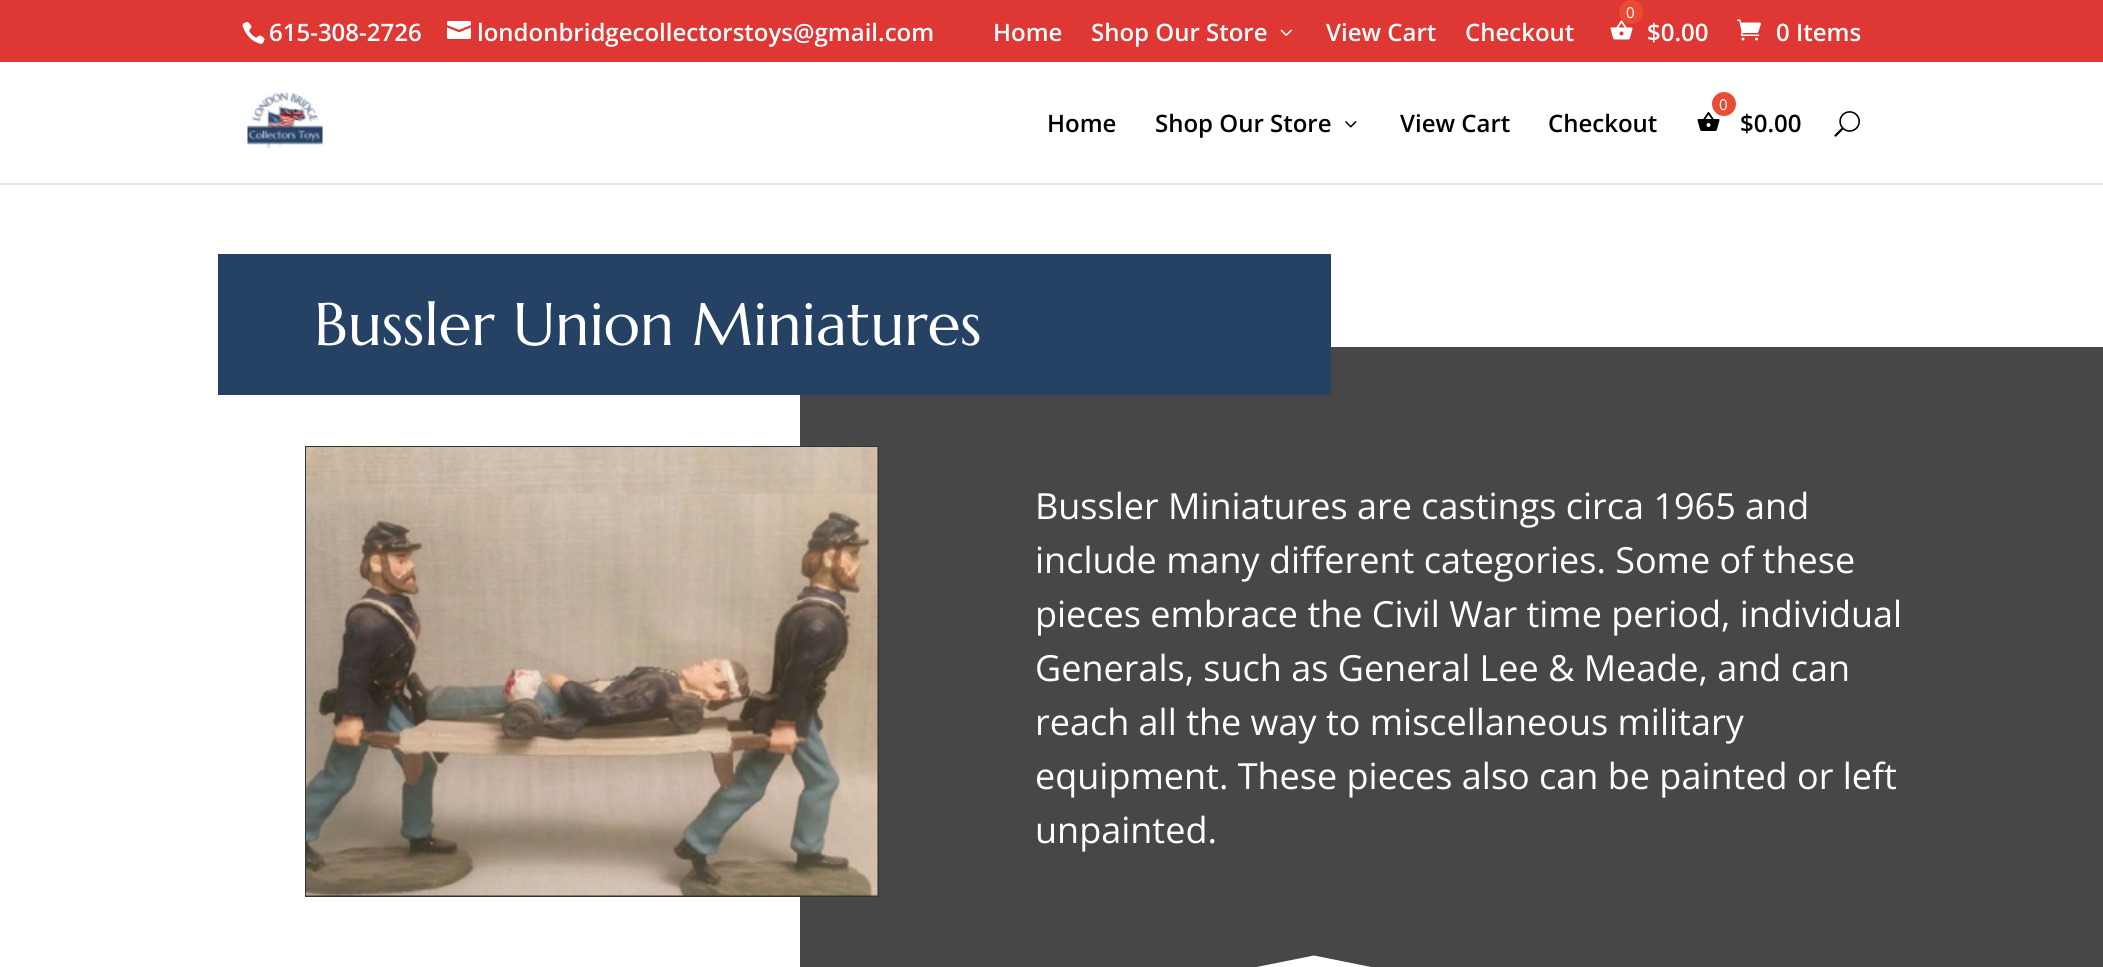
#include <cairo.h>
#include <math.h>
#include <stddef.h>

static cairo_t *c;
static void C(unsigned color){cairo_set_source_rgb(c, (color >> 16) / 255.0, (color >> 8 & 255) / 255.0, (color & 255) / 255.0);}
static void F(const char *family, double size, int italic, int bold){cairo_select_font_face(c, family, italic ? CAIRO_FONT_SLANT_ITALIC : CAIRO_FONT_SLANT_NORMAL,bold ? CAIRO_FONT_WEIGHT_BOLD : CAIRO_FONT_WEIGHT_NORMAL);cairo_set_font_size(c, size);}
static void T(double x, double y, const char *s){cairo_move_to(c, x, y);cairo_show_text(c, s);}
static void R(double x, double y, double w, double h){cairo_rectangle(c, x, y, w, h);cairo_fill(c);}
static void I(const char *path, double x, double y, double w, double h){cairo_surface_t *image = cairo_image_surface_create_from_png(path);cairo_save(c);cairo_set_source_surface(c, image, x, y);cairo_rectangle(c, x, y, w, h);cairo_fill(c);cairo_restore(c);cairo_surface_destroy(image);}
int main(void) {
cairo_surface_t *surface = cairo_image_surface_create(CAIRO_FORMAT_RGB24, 2103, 967);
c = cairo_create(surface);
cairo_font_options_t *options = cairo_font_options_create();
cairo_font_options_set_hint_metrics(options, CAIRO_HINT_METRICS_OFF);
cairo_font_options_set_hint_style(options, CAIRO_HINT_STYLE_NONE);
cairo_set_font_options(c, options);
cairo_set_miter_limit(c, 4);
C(0xffffff);
cairo_paint(c);
C(0xdf3733);
R(0,0,2103,62);
I("1.png",242,22,23,22);
F("Open Sans SemiBold",24,0,0);
C(0xffffff);
T(269,41,"615-308-2726");
I("2.png",447,21,24,18);
T(477,41,"londonbridgecollectorstoys@gmail.com");
T(993,41,"Home");
T(1091,41,"Shop Our Store");
I("3.png",1280,29,12,7);
T(1326,41,"View Cart");
T(1465,41,"Checkout");
I("4.png",1610,20,23,20);
C(0xe94b35);
cairo_arc(c,1631,12,12,0,2 * M_PI);
cairo_fill(c);
F("Open Sans",15,0,0);
C(0xffffff);
T(1626,18,"0");
F("Open Sans SemiBold",24,0,0);
T(1647,41,"$0.00");
I("5.png",1737,19,24,22);
T(1776,41,"0 Items");
C(0xe6e6e6);
R(0,183,2103,2);
I("6.png",247,91,76,58);
C(0x000000);
T(1047,132,"Home");
T(1155,132,"Shop Our Store");
I("7.png",1345,121,12,7);
T(1400,132,"View Cart");
T(1548,132,"Checkout");
I("8.png",1697,112,23,19);
C(0xe94b35);
cairo_arc(c,1724,104,12,0,2 * M_PI);
cairo_fill(c);
F("Open Sans",15,0,0);
C(0xffffff);
T(1719,110,"0");
F("Open Sans SemiBold",24,0,0);
C(0x000000);
T(1740,132,"$0.00");
I("9.png",1834,111,26,26);
C(0x474747);
R(800,347,1303,620);
C(0x254264);
R(218,254,1113,141);
F("Marcellus",60,0,0);
C(0xffffff);
T(314,345,"Bussler Union Miniatures");
cairo_rectangle(c,306,447,572,449);
C(0x333333);
cairo_stroke(c);
I("10.png",306,447,572,449);
F("Open Sans",36,0,0);
C(0xffffff);
T(1035,519,"Bussler Miniatures are castings circa 1965 and");
T(1035,573,"include many different categories. Some of these");
T(1035,627,"pieces embrace the Civil War time period, individual");
T(1035,681,"Generals, such as General Lee & Meade, and can");
T(1035,735,"reach all the way to miscellaneous military");
T(1035,789,"equipment. These pieces also can be painted or left");
T(1035,843,"unpainted.");
I("11.png",1257,955,114,12);
cairo_surface_write_to_png(surface, "o.png");
cairo_font_options_destroy(options);
cairo_destroy(c);
cairo_surface_destroy(surface);
return 0;
}
